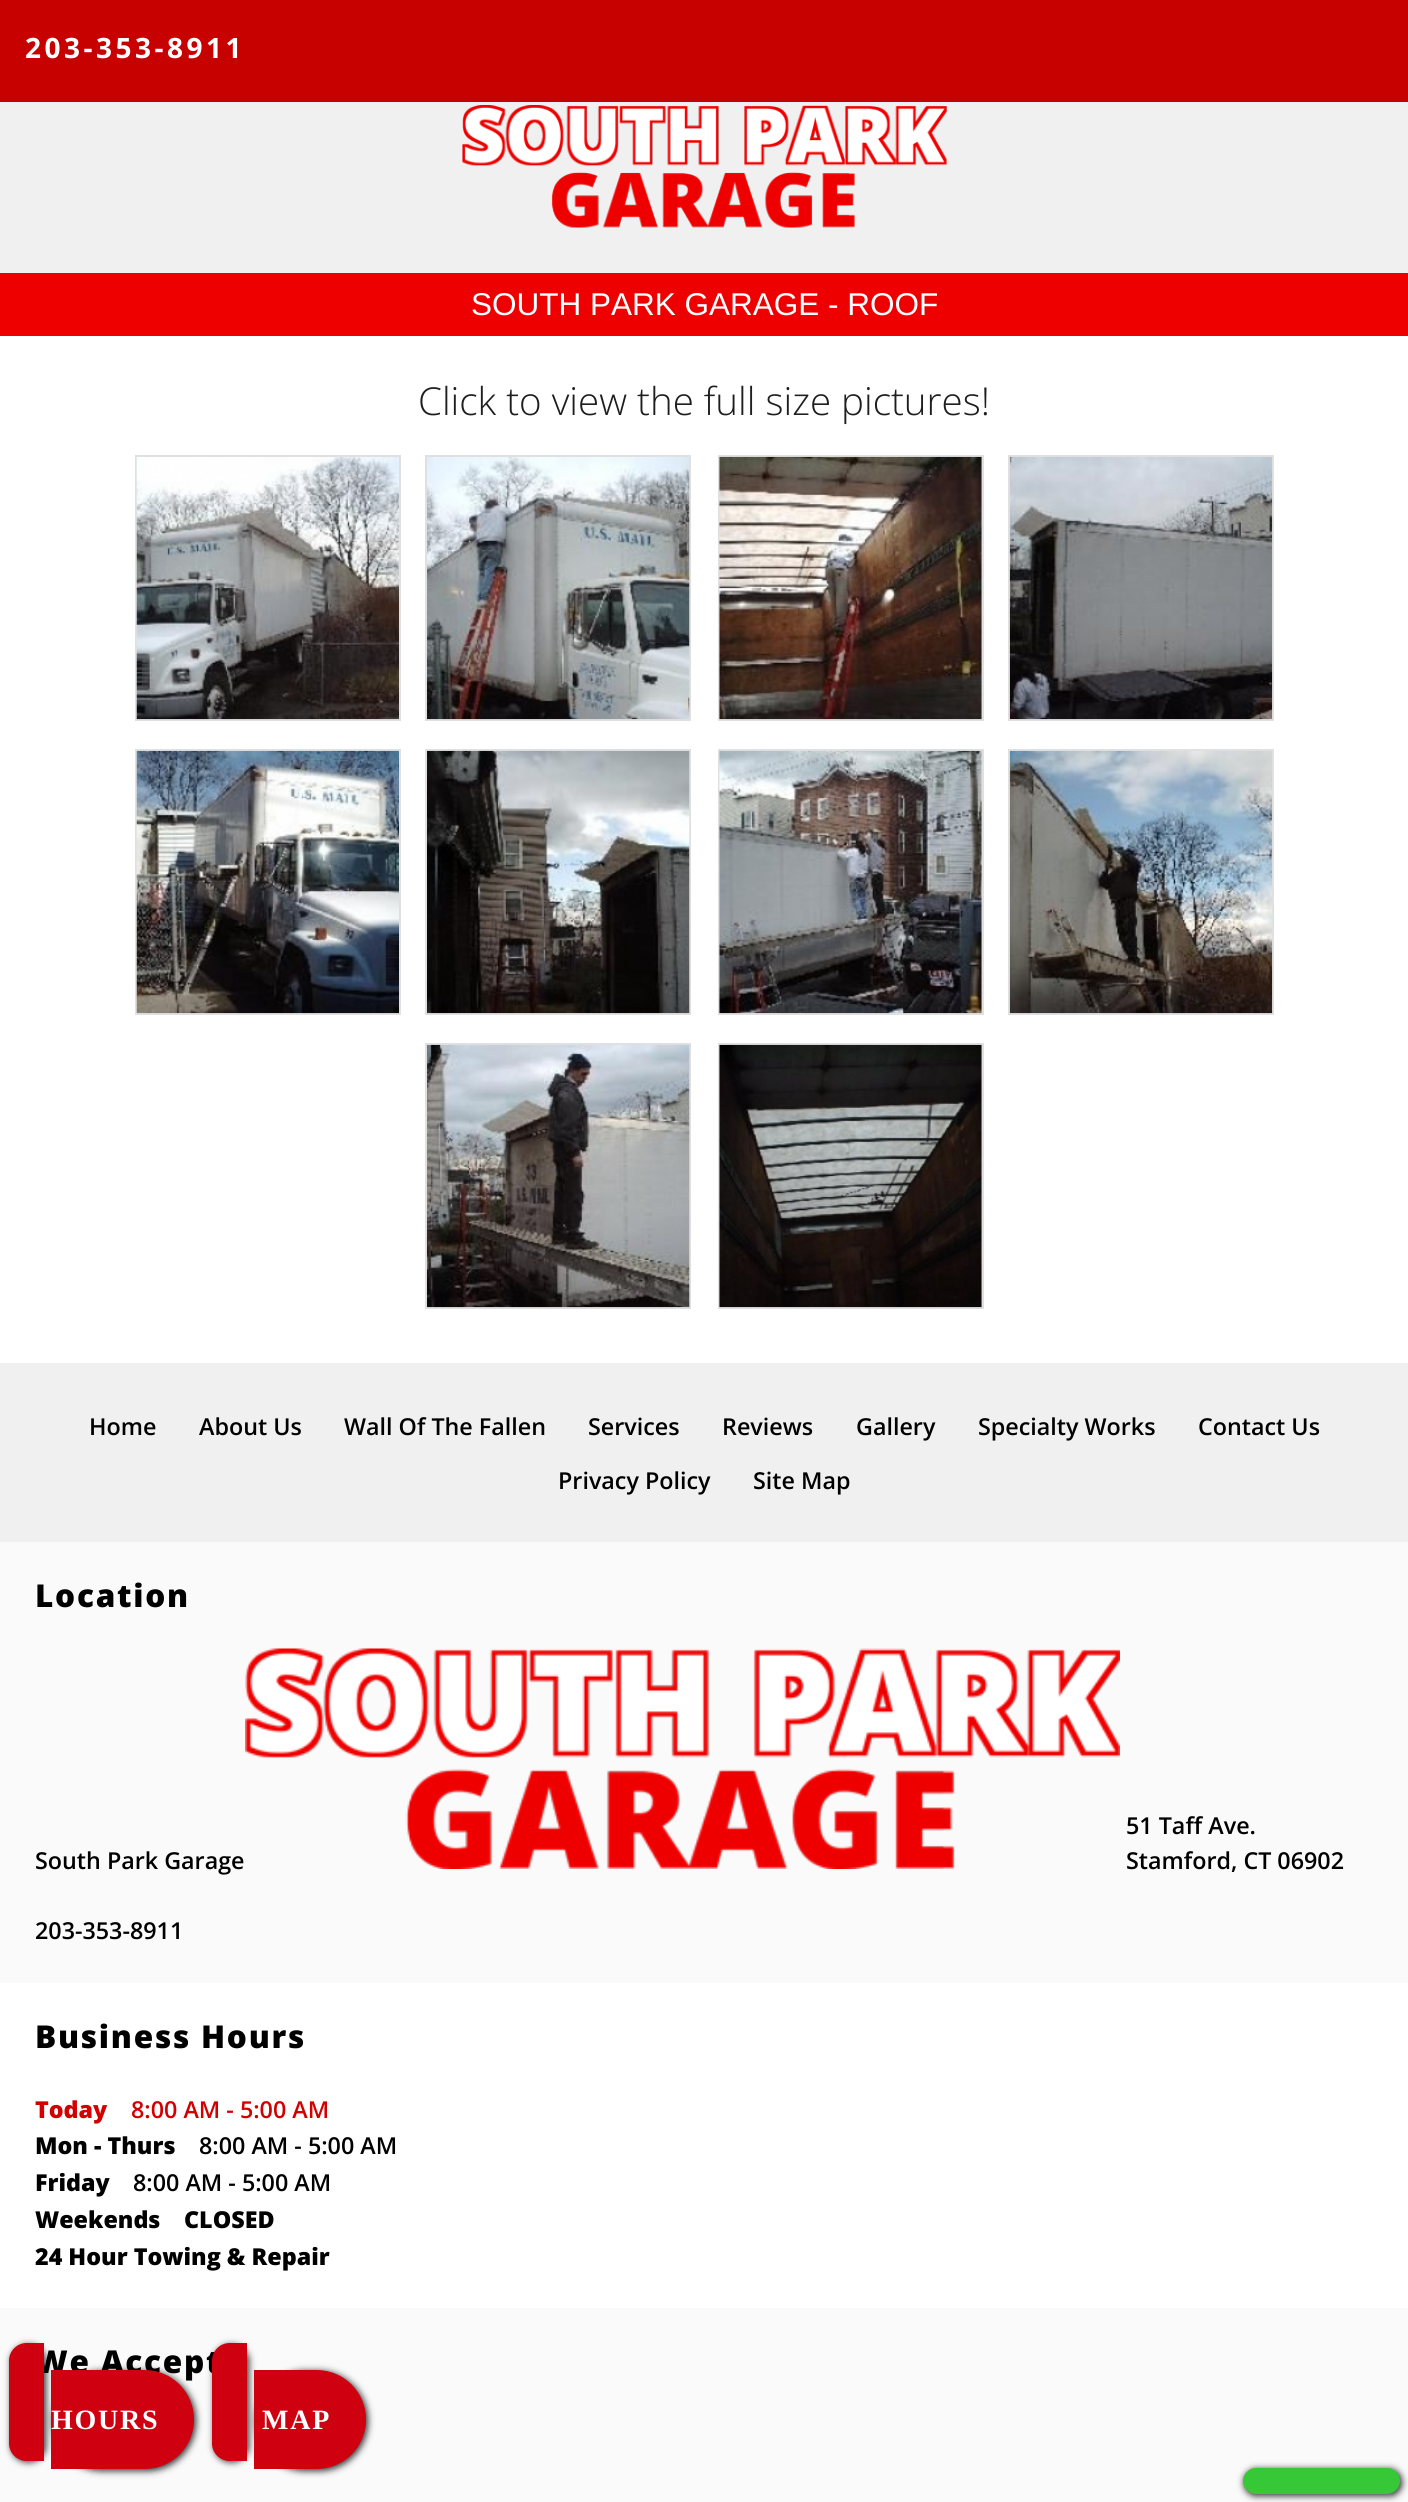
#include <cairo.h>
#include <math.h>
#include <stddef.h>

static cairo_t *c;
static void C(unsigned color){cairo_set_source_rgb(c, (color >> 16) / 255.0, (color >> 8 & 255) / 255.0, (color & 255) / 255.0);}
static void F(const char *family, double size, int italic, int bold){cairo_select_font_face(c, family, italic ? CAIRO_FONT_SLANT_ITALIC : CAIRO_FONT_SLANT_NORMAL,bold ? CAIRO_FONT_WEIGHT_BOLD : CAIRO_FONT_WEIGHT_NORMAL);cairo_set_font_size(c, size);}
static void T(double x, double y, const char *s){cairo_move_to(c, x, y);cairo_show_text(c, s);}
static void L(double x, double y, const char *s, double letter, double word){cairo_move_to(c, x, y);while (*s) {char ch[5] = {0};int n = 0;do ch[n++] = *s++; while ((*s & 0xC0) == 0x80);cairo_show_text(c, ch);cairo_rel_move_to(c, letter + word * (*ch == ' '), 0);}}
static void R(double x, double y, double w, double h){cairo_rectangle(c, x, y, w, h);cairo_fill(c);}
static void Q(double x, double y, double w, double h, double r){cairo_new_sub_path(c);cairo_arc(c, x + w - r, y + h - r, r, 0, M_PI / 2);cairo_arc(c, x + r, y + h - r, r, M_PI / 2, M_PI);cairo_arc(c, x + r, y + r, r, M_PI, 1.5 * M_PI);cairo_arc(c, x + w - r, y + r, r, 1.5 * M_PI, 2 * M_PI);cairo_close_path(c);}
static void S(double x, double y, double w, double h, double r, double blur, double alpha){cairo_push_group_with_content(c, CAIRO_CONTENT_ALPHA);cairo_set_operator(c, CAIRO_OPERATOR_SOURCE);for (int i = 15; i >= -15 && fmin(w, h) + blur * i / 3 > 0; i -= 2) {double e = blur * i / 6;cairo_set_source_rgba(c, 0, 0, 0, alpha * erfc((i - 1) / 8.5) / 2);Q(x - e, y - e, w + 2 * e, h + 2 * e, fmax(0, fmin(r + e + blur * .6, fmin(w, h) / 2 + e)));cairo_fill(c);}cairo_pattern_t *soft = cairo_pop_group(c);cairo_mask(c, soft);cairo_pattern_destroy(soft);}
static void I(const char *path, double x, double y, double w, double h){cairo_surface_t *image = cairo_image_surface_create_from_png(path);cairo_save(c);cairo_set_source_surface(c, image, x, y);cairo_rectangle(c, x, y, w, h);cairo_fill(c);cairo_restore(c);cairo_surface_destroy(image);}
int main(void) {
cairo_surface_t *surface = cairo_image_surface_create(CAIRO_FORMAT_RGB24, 1408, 2502);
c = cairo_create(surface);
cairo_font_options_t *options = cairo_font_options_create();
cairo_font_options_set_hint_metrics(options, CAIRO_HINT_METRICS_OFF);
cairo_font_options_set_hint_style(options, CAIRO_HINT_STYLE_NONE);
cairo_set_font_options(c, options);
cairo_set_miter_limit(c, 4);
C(0xffffff);
cairo_paint(c);
C(0xf0f0f0);
R(0,102,1408,171);
C(0xc70000);
R(0,0,1408,102);
F("Open Sans",28,0,1);
C(0xffffff);
L(25,58,"203-353-8911",3.5,0);
I("1.png",462,105,485,123);
C(0xef0000);
R(0,273,1408,63);
F("Liberation Sans",31.5,0,0);
C(0xffffff);
T(471,315,"SOUTH PARK GARAGE - ROOF");
F("Open Sans Light",38.5,0,0);
C(0x1e1e1e);
T(418,415,"Click to view the full size pictures!");
cairo_rectangle(c,136,456,264,264);
C(0xe0e0e0);
cairo_stroke(c);
I("2.png",136,457,263,263);
cairo_rectangle(c,426,456,264,264);
cairo_stroke(c);
I("3.png",427,457,263,263);
C(0xf2f2f2);
R(981,457,1,262);
cairo_rectangle(c,719,456,264,264);
C(0xe0e0e0);
cairo_stroke(c);
I("4.png",719,456,263,264);
cairo_rectangle(c,1009,456,264,264);
cairo_stroke(c);
I("5.png",1009,456,264,264);
cairo_rectangle(c,136,750,264,264);
cairo_stroke(c);
I("6.png",136,750,263,264);
cairo_rectangle(c,426,750,264,264);
cairo_stroke(c);
I("7.png",427,750,263,264);
C(0xf2f2f2);
R(981,751,1,262);
cairo_rectangle(c,719,750,264,264);
C(0xe0e0e0);
cairo_stroke(c);
I("8.png",719,750,263,264);
cairo_rectangle(c,1009,750,264,264);
cairo_stroke(c);
I("9.png",1009,750,264,264);
cairo_rectangle(c,426,1044,264,264);
cairo_stroke(c);
I("10.png",427,1044,263,264);
C(0xf2f2f2);
R(981,1045,1,262);
cairo_rectangle(c,719,1044,264,264);
C(0xe0e0e0);
cairo_stroke(c);
I("11.png",719,1044,263,264);
C(0xf0f0f0);
R(0,1363,1408,179);
F("Open Sans SemiBold",23.3,0,0);
C(0x000000);
T(89,1435,"Home");
T(199,1435,"About Us");
T(344,1435,"Wall Of The Fallen");
T(588,1435,"Services");
T(722,1435,"Reviews");
T(856,1435,"Gallery");
T(978,1435,"Specialty Works");
T(1198,1435,"Contact Us");
T(558,1489,"Privacy Policy");
T(753,1489,"Site Map");
C(0xfafafa);
R(0,1542,1408,441);
F("Open Sans ExtraBold",31.5,0,0);
C(0x000000);
L(35,1607,"Location",1.75,0);
F("Open Sans SemiBold",23.3,0,0);
T(35,1869,"South Park Garage");
I("12.png",245,1648,875,221);
T(1126,1834,"51 Taff Ave.");
T(1126,1869,"Stamford, CT 06902");
T(35,1939,"203-353-8911");
F("Open Sans ExtraBold",31.5,0,0);
L(35,2048,"Business Hours",1.75,0);
F("Open Sans ExtraBold",23.3,0,0);
C(0xd20000);
T(35,2118,"Today");
F("Open Sans SemiBold",23.3,0,0);
T(131,2118,"8:00 AM - 5:00 AM");
F("Open Sans ExtraBold",23.3,0,0);
C(0x000000);
T(35,2154,"Mon - Thurs");
F("Open Sans SemiBold",23.3,0,0);
T(199,2154,"8:00 AM - 5:00 AM");
F("Open Sans ExtraBold",23.3,0,0);
T(35,2191,"Friday");
F("Open Sans SemiBold",23.3,0,0);
T(133,2191,"8:00 AM - 5:00 AM");
F("Open Sans ExtraBold",23.3,0,0);
T(35,2228,"Weekends");
T(184,2228,"CLOSED");
T(35,2265,"24 Hour Towing & Repair");
C(0xfafafa);
R(0,2308,1408,194);
F("Open Sans ExtraBold",31.5,0,0);
C(0x000000);
L(35,2373,"We Accept",1.75,0);
C(0x000000);
S(11,2345,35,117,17.5,3.5,.8);
C(0xcf000f);
cairo_new_path(c);
cairo_move_to(c,26.5,2343);
cairo_line_to(c,44,2343);
cairo_line_to(c,44,2461);
cairo_line_to(c,26.5,2461);
cairo_curve_to(c,17,2461,9,2453,9,2443.5);
cairo_line_to(c,9,2360.5);
cairo_curve_to(c,9,2351,17,2343,26.5,2343);
cairo_close_path(c);
cairo_fill(c);
C(0x000000);
S(53,2371,143,100,50,3.5,.8);
C(0xcf000f);
cairo_new_path(c);
cairo_move_to(c,51,2370);
cairo_line_to(c,144.5,2370);
cairo_curve_to(c,172,2370,194,2392,194,2419.5);
cairo_curve_to(c,194,2447,172,2469,144.5,2469);
cairo_line_to(c,51,2469);
cairo_close_path(c);
cairo_fill(c);
F("Liberation Serif",28,0,1);
C(0xffffff);
L(51,2429,"HOURS",1.75,0);
C(0x000000);
S(214,2345,35,117,17.5,3.5,.8);
C(0xcf000f);
cairo_new_path(c);
cairo_move_to(c,229.5,2343);
cairo_line_to(c,247,2343);
cairo_line_to(c,247,2461);
cairo_line_to(c,229.5,2461);
cairo_curve_to(c,220,2461,212,2453,212,2443.5);
cairo_line_to(c,212,2360.5);
cairo_curve_to(c,212,2351,220,2343,229.5,2343);
cairo_close_path(c);
cairo_fill(c);
C(0x000000);
S(256,2371,112,100,50,3.5,.8);
C(0xcf000f);
cairo_new_path(c);
cairo_move_to(c,254,2370);
cairo_line_to(c,316.5,2370);
cairo_curve_to(c,344,2370,366,2392,366,2419.5);
cairo_curve_to(c,366,2447,344,2469,316.5,2469);
cairo_line_to(c,254,2469);
cairo_close_path(c);
cairo_fill(c);
C(0xffffff);
L(262,2429,"MAP",1.75,0);
C(0x000000);
S(1244,2469,158,27,13.5,3.5,.8);
C(0x37c837);
Q(1243,2468,157,26,13);
cairo_fill(c);
cairo_surface_write_to_png(surface, "o.png");
cairo_font_options_destroy(options);
cairo_destroy(c);
cairo_surface_destroy(surface);
return 0;
}
